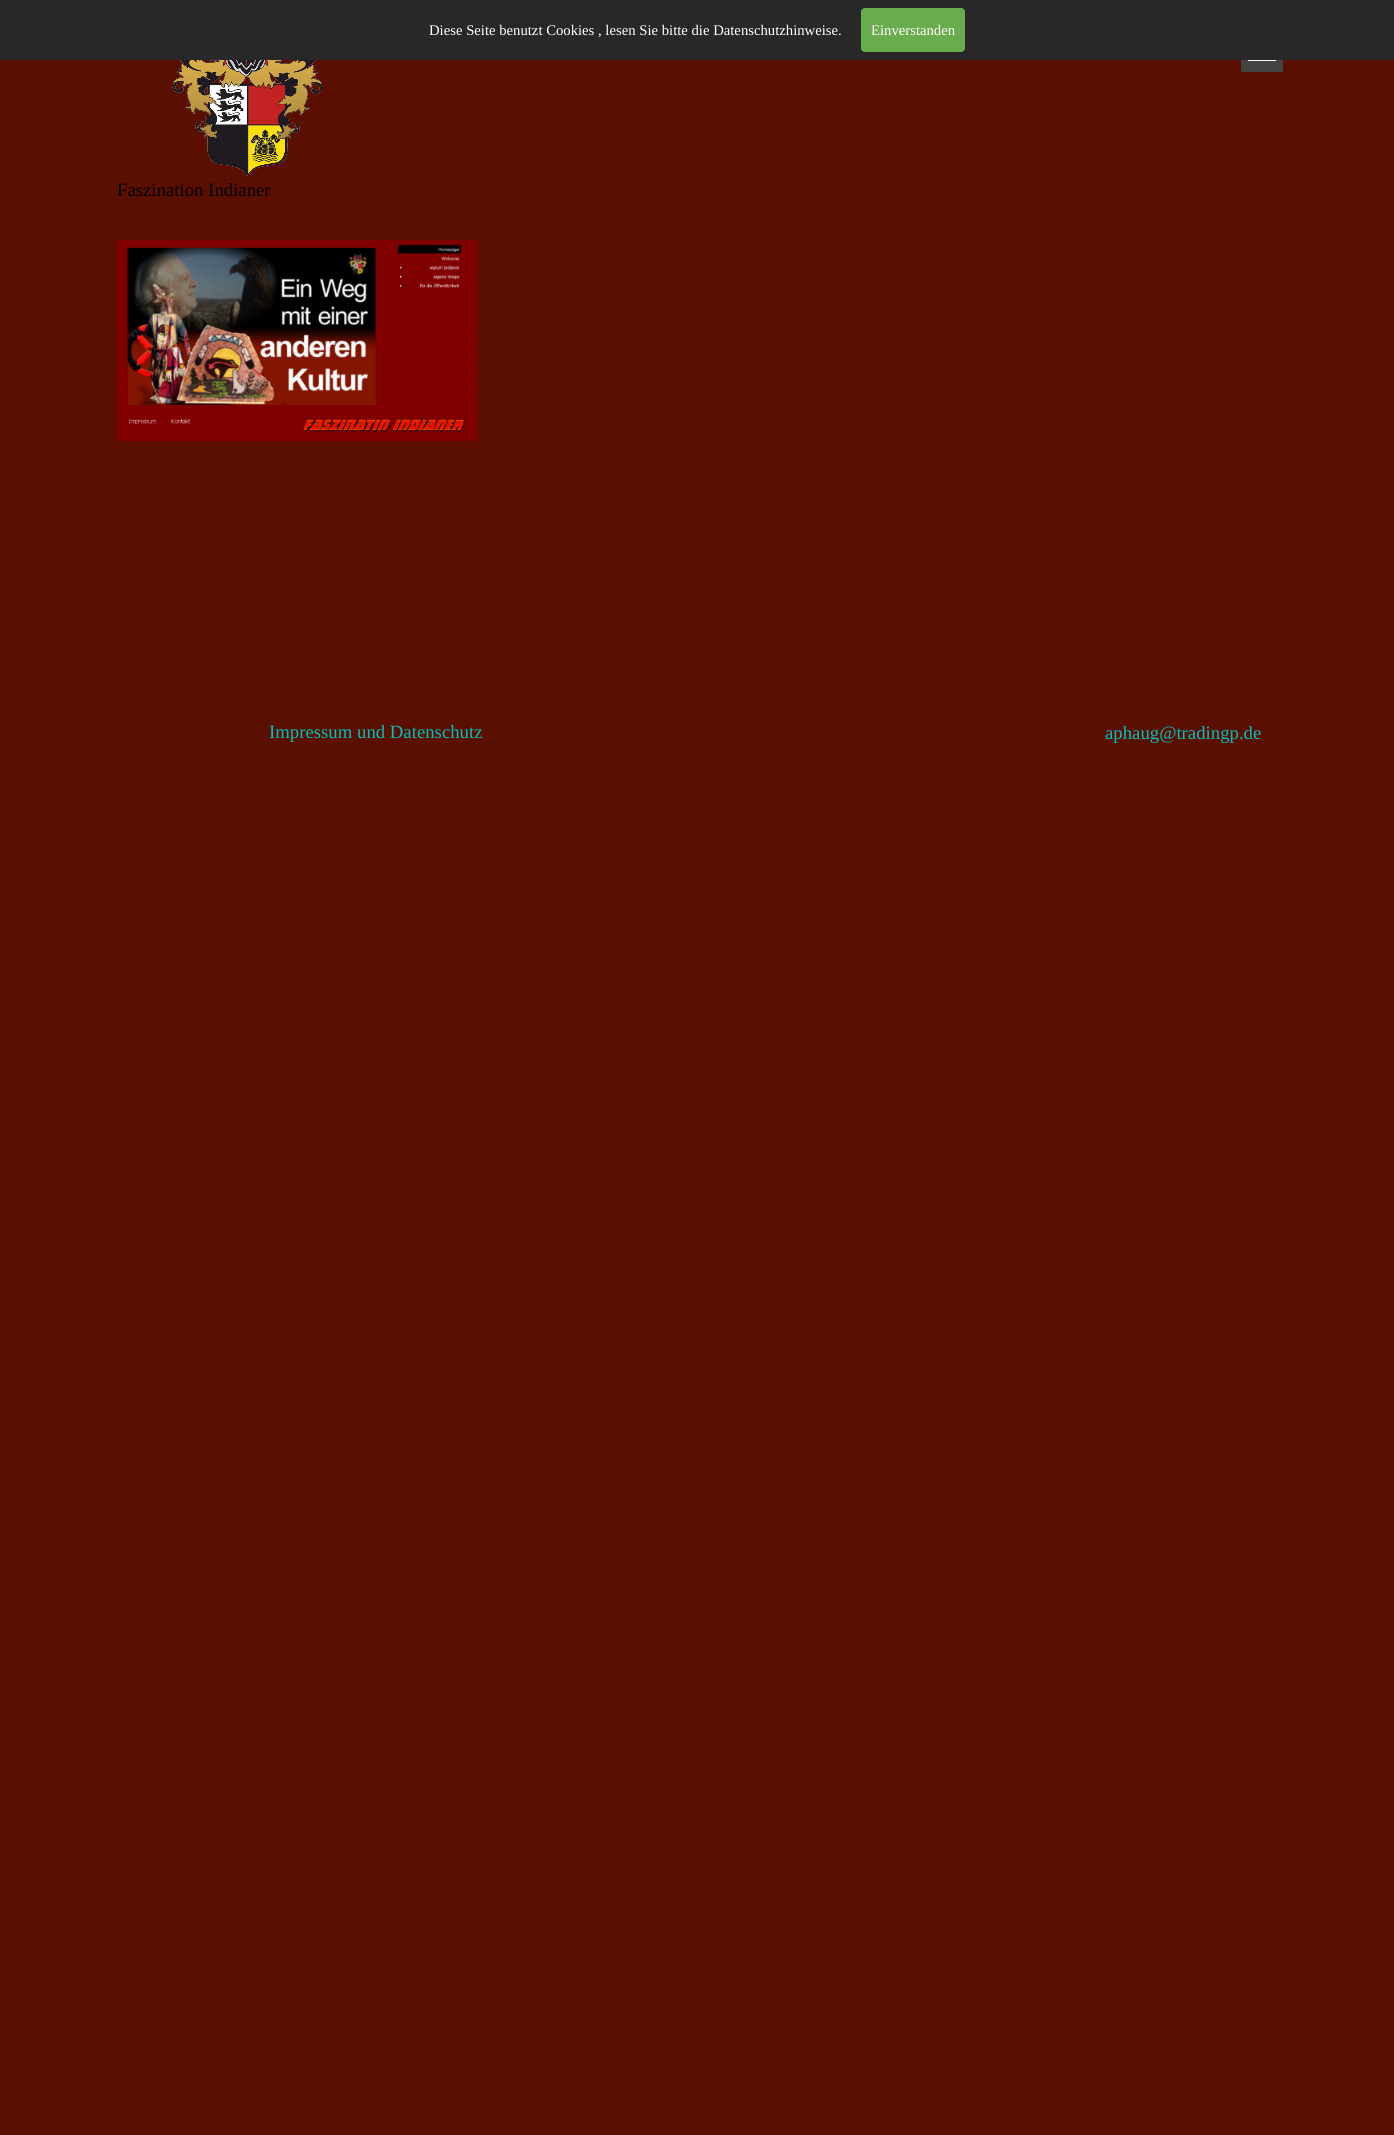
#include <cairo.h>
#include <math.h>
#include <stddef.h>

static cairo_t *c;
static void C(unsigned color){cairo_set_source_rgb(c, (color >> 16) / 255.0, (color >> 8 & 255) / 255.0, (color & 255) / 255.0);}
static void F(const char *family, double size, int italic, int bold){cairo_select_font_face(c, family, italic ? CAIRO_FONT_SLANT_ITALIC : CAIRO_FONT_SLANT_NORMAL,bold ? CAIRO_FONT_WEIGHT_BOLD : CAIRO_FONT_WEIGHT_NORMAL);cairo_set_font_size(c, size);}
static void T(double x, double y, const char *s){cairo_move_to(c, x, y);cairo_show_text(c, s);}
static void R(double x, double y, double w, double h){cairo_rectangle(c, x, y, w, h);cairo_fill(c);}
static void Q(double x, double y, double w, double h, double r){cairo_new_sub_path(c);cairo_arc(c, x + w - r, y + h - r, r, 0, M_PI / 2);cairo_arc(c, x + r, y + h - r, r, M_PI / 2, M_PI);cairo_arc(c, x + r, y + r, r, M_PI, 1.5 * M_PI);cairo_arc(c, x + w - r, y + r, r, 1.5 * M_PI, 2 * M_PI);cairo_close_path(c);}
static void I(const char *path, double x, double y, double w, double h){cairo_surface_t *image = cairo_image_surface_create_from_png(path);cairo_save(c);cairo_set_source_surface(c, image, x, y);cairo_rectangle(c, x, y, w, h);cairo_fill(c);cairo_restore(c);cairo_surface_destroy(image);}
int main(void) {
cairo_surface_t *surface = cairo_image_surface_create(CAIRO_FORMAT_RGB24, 1394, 2135);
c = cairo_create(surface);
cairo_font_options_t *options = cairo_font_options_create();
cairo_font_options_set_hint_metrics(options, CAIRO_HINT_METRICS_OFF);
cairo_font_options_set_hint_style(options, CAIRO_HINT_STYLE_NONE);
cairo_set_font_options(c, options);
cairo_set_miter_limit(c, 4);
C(0x5b0f00);
cairo_paint(c);
C(0x282828);
R(0,0,1394,60);
F("Liberation Serif",14.7,0,0);
C(0xffffff);
T(429,35,"Diese Seite benutzt Cookies , lesen Sie bitte die Datenschutzhinweise.");
C(0x69ac4d);
Q(861,8,104,44,4);
cairo_fill(c);
C(0xffffff);
T(871,35,"Einverstanden");
I("1.png",172,60,150,116);
C(0x434343);
R(1241,60,42,12);
C(0xffffff);
R(1248,60,28,1);
F("Liberation Serif",18.75,0,0);
C(0x000000);
T(117,196,"Faszination Indianer");
I("2.png",117,240,360,201);
C(0x00bfbf);
T(269,738,"Impressum und Datenschutz");
T(1105,739,"aphaug@tradingp.de");
cairo_surface_write_to_png(surface, "o.png");
cairo_font_options_destroy(options);
cairo_destroy(c);
cairo_surface_destroy(surface);
return 0;
}
